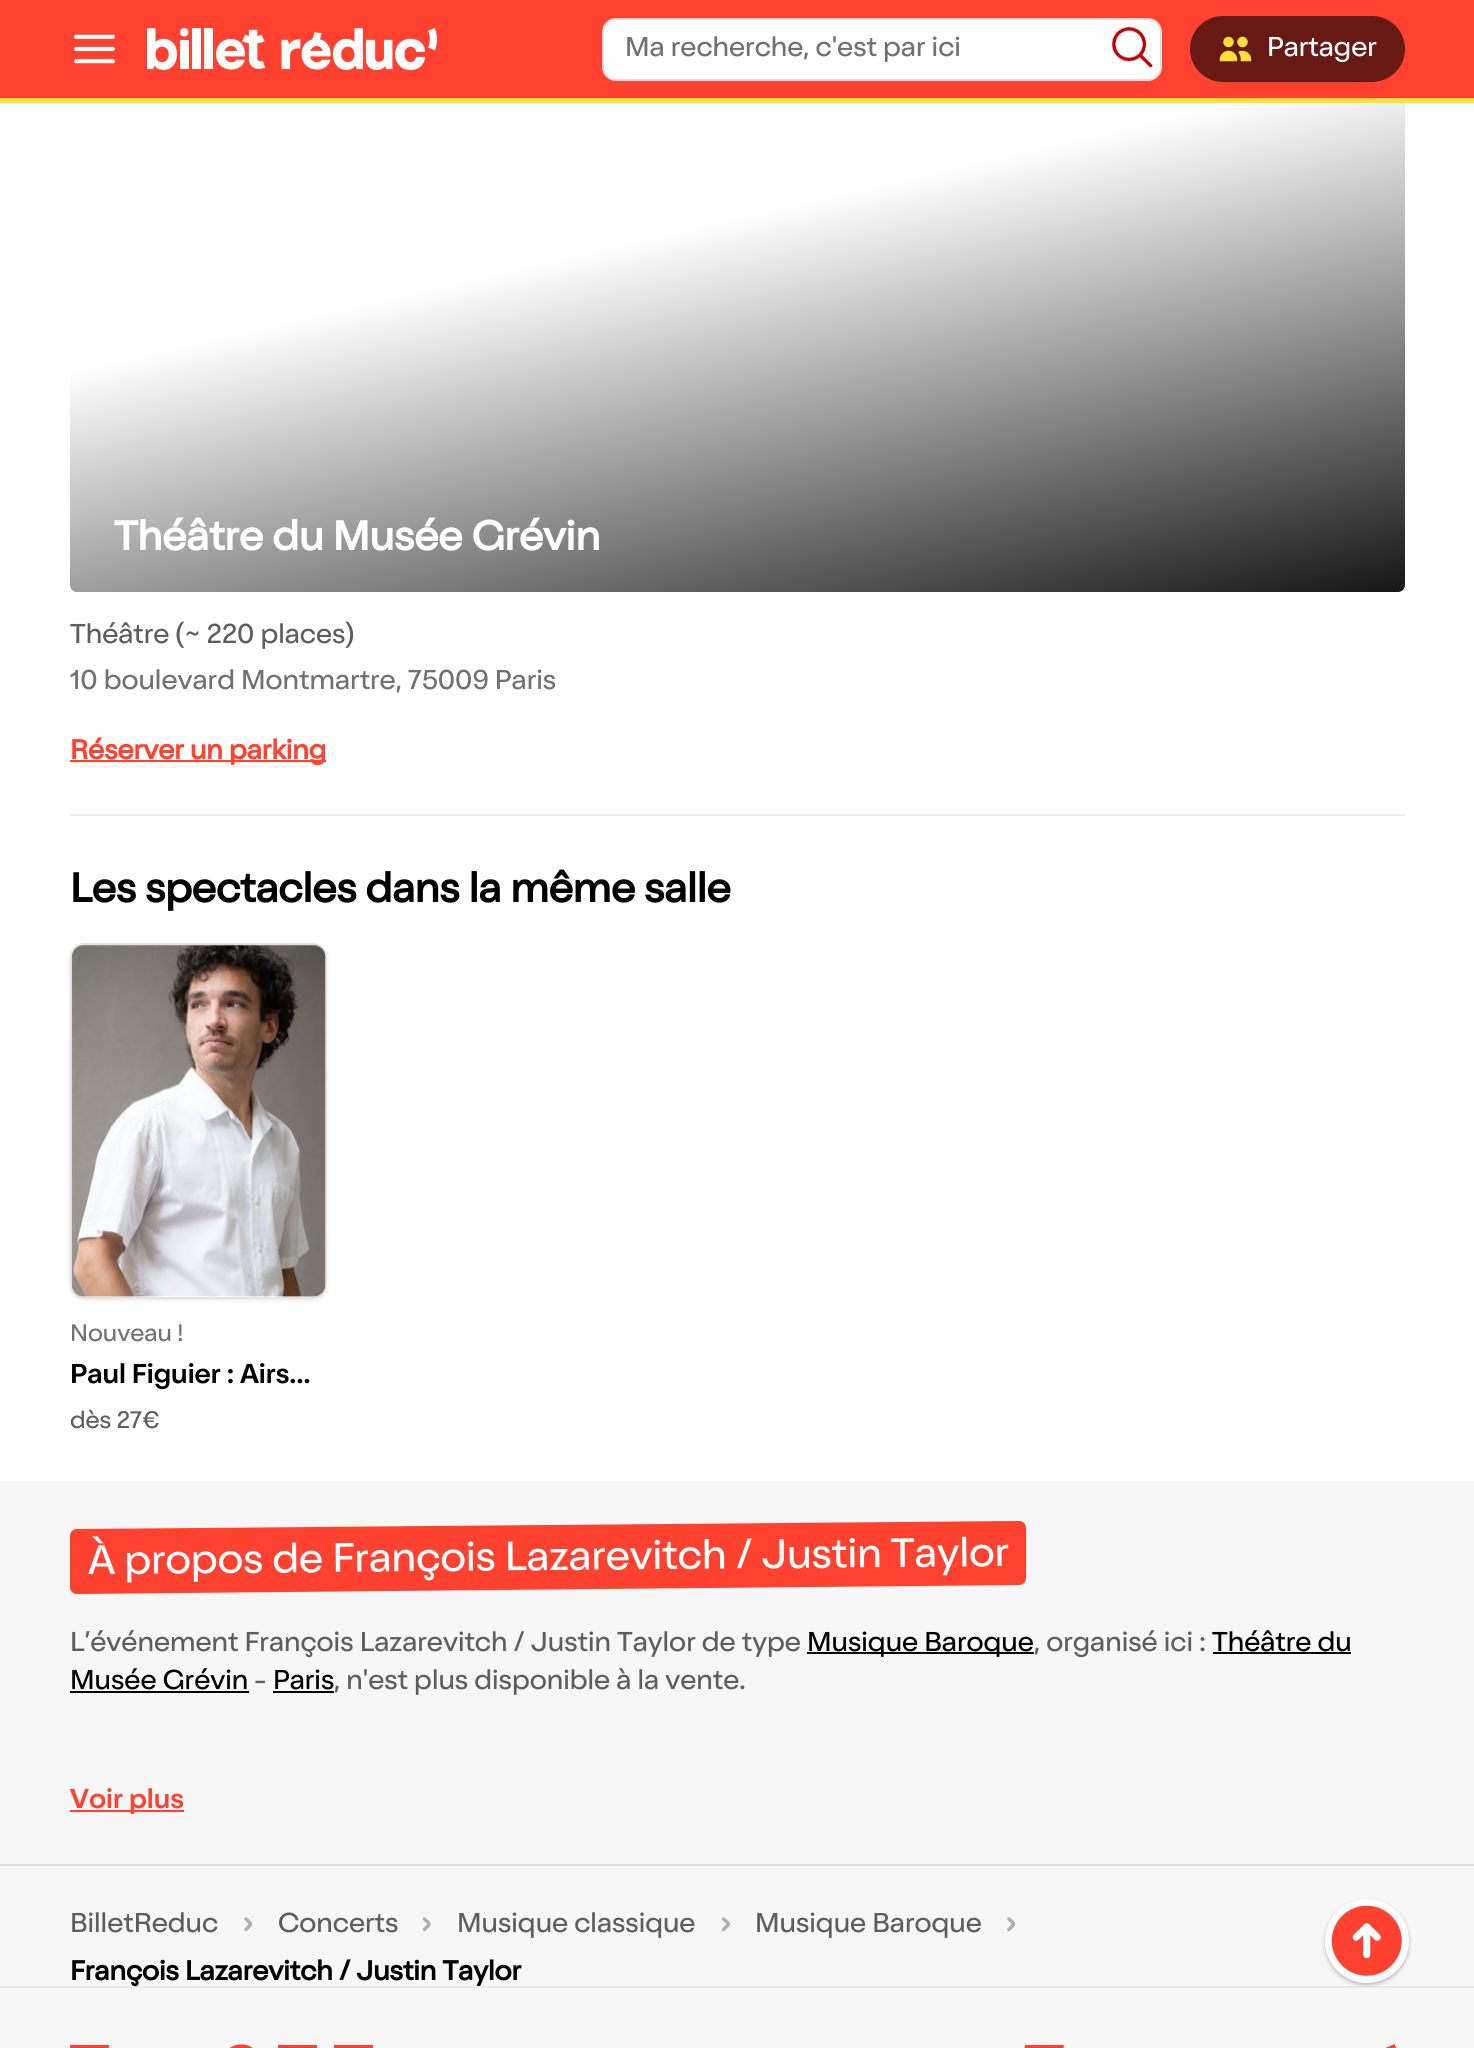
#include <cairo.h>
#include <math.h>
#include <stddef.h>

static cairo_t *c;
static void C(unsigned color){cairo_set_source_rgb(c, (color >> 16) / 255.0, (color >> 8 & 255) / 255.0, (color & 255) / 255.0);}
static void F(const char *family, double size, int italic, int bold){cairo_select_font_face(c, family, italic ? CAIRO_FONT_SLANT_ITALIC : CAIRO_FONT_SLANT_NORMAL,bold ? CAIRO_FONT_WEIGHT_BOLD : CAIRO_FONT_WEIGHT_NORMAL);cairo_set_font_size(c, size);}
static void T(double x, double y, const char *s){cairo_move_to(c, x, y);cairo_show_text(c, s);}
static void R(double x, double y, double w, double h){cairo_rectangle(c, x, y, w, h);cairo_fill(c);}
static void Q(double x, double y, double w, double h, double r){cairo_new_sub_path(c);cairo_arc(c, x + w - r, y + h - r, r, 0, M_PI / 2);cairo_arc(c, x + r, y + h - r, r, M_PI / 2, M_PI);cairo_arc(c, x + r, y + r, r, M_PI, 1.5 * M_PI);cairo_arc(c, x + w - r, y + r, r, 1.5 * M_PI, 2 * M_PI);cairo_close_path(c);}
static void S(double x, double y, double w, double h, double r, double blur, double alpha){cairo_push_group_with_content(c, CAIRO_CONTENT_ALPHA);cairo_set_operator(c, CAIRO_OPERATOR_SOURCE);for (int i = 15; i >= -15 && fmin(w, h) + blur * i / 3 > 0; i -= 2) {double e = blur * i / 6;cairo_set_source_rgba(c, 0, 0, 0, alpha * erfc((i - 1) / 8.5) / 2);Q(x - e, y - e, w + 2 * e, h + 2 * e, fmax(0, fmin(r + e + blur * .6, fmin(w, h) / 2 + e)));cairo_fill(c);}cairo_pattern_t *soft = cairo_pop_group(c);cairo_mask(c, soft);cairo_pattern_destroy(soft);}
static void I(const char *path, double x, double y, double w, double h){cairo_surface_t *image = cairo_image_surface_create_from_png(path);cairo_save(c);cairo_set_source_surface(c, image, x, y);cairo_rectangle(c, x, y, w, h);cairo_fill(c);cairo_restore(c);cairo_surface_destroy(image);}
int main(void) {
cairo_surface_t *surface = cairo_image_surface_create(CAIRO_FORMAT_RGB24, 1474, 2048);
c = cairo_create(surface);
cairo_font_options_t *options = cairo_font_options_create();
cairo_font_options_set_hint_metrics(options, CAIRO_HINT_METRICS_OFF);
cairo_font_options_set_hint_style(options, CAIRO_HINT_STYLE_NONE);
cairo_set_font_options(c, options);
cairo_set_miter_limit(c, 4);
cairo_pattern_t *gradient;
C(0xffffff);
cairo_paint(c);
gradient = cairo_pattern_create_linear(642,-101,844,772);
cairo_pattern_add_color_stop_rgba(gradient,.37,1,1,1,1);
cairo_pattern_add_color_stop_rgba(gradient,1,0,0,0,1);
cairo_set_source(c,gradient);
cairo_pattern_destroy(gradient);
Q(70,32,1335,560,7);
cairo_fill(c);
C(0xff4130);
R(0,0,1474,98);
C(0xffe039);
R(0,98,1474,5);
I("1.png",74,34,41,30);
I("2.png",147,28,290,42);
C(0xffffff);
Q(603,19,558,61,13);
cairo_fill_preserve(c);
C(0xdddddd);
cairo_stroke(c);
F("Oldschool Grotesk",28,0,0);
C(0x717171);
T(625,56,"Ma recherche, c'est par ici");
I("3.png",1112,26,41,42);
C(0x661a13);
Q(1190,16,215,66,33);
cairo_fill(c);
I("4.png",1219,36,33,26);
C(0xffffff);
T(1267,56,"Partager");
F("Oldschool Grotesk",42,0,1);
T(114,550,"Théâtre du Musée Grévin");
F("Oldschool Grotesk",28,0,0);
C(0x5e5e5e);
T(70,643,"Théâtre (~ 220 places)");
C(0x717171);
T(70,689,"10 boulevard Montmartre, 75009 Paris");
C(0xff4130);
R(70,760,256,2);
F("Oldschool Grotesk",28,0,1);
T(70,759,"Réserver un parking");
C(0xebebeb);
R(70,814,1335,2);
F("Oldschool Grotesk",42,0,1);
C(0x000000);
T(70,902,"Les spectacles dans la même salle");
cairo_save(c);
cairo_set_fill_rule(c,CAIRO_FILL_RULE_EVEN_ODD);
cairo_new_path(c);
cairo_move_to(c,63,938);
cairo_line_to(c,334,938);
cairo_line_to(c,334,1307);
cairo_line_to(c,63,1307);
cairo_close_path(c);
cairo_move_to(c,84,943);
cairo_line_to(c,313,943);
cairo_curve_to(c,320.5,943,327,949.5,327,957);
cairo_line_to(c,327,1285);
cairo_curve_to(c,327,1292.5,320.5,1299,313,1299);
cairo_line_to(c,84,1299);
cairo_curve_to(c,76.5,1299,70,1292.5,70,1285);
cairo_line_to(c,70,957);
cairo_curve_to(c,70,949.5,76.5,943,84,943);
cairo_close_path(c);
cairo_clip(c);
C(0x000000);
S(70,945,257,355,14,2,.1);
cairo_restore(c);
Q(71,944,255,354,13);
cairo_set_source_rgba(c,0,0,0,0.1);
cairo_stroke(c);
I("5.png",71,944,255,354);
F("Oldschool Grotesk",24.5,0,0);
C(0x717171);
T(70,1341,"Nouveau !");
F("Oldschool Grotesk Medium",28,0,0);
C(0x000000);
T(70,1383,"Paul Figuier : Airs…");
F("Oldschool Grotesk",24.5,0,0);
C(0x5e5e5e);
T(70,1428,"dès 27€");
C(0xf7f7f7);
R(0,1481,1474,383);
C(0xff4130);
cairo_new_path(c);
cairo_move_to(c,77,1529);
cairo_line_to(c,1019,1521);
cairo_curve_to(c,1023,1521,1026,1524,1026,1528);
cairo_line_to(c,1026,1578);
cairo_curve_to(c,1026,1582,1023,1585,1019,1585);
cairo_line_to(c,77,1594);
cairo_curve_to(c,73,1594,70,1591,70,1587);
cairo_line_to(c,70,1536);
cairo_curve_to(c,70,1532,73,1529,77,1529);
cairo_close_path(c);
cairo_fill(c);
F("Oldschool Grotesk",42,0,0);
C(0xffffff);
cairo_save(c);
cairo_translate(c,88,1574);
cairo_rotate(c,-0.5 * M_PI / 180);
T(0,0,"À propos de François Lazarevitch / Justin Taylor");
cairo_restore(c);
F("Oldschool Grotesk",28,0,0);
C(0x5e5e5e);
T(70,1651,"L’événement François Lazarevitch / Justin Taylor de type");
C(0x000000);
R(807,1652,227,2);
T(807,1651,"Musique Baroque");
C(0x5e5e5e);
T(1034,1651,", organisé ici :");
C(0x000000);
T(1212,1651,"Théâtre du");
R(1213,1652,138,2);
T(70,1689,"Musée Grévin");
R(70,1691,179,2);
C(0x5e5e5e);
T(254,1689,"-");
C(0x000000);
T(273,1689,"Paris");
R(273,1691,61,2);
C(0x5e5e5e);
T(334,1689,", n'est plus disponible à la vente.");
C(0xff4130);
R(70,1810,114,2);
F("Oldschool Grotesk Medium",28,0,0);
T(70,1808,"Voir plus");
C(0xf7f7f7);
R(0,1866,1474,120);
C(0xdddddd);
R(0,1864,1474,2);
F("Oldschool Grotesk",28,0,0);
C(0x5e5e5e);
T(70,1932,"BilletReduc");
cairo_new_path(c);
cairo_move_to(c,246,1929.5);
cairo_curve_to(c,252,1923,252,1925,246,1919);
C(0xb0b0b0);
cairo_set_line_width(c,3.5);
cairo_set_line_cap(c,CAIRO_LINE_CAP_ROUND);
cairo_set_line_join(c,CAIRO_LINE_JOIN_ROUND);
cairo_stroke(c);
C(0x5e5e5e);
T(278,1932,"Concerts");
cairo_new_path(c);
cairo_move_to(c,424.5,1929.5);
cairo_curve_to(c,430.5,1923,430.5,1925,424.5,1919);
C(0xb0b0b0);
cairo_stroke(c);
C(0x5e5e5e);
T(457,1932,"Musique classique");
cairo_new_path(c);
cairo_move_to(c,723.5,1929.5);
cairo_curve_to(c,730,1923,730,1925,723.5,1919);
C(0xb0b0b0);
cairo_stroke(c);
C(0x5e5e5e);
T(755,1932,"Musique Baroque");
cairo_new_path(c);
cairo_move_to(c,1009,1929.5);
cairo_curve_to(c,1015,1923,1015,1925,1009,1919);
C(0xb0b0b0);
cairo_stroke(c);
C(0xebebeb);
R(0,1986,1474,2);
F("Oldschool Grotesk",28,0,1);
C(0x000000);
T(70,1980,"François Lazarevitch / Justin Taylor");
C(0xf7f7f7);
R(0,1988,1474,60);
I("6.png",70,2044,1327,4);
C(0x000000);
S(1325,1901,84,84,42,2,.25);
C(0xffffff);
cairo_arc(c,1367,1941,42,0,2 * M_PI);
cairo_fill(c);
I("7.png",1331,1905,71,71);
cairo_surface_write_to_png(surface, "o.png");
cairo_font_options_destroy(options);
cairo_destroy(c);
cairo_surface_destroy(surface);
return 0;
}
